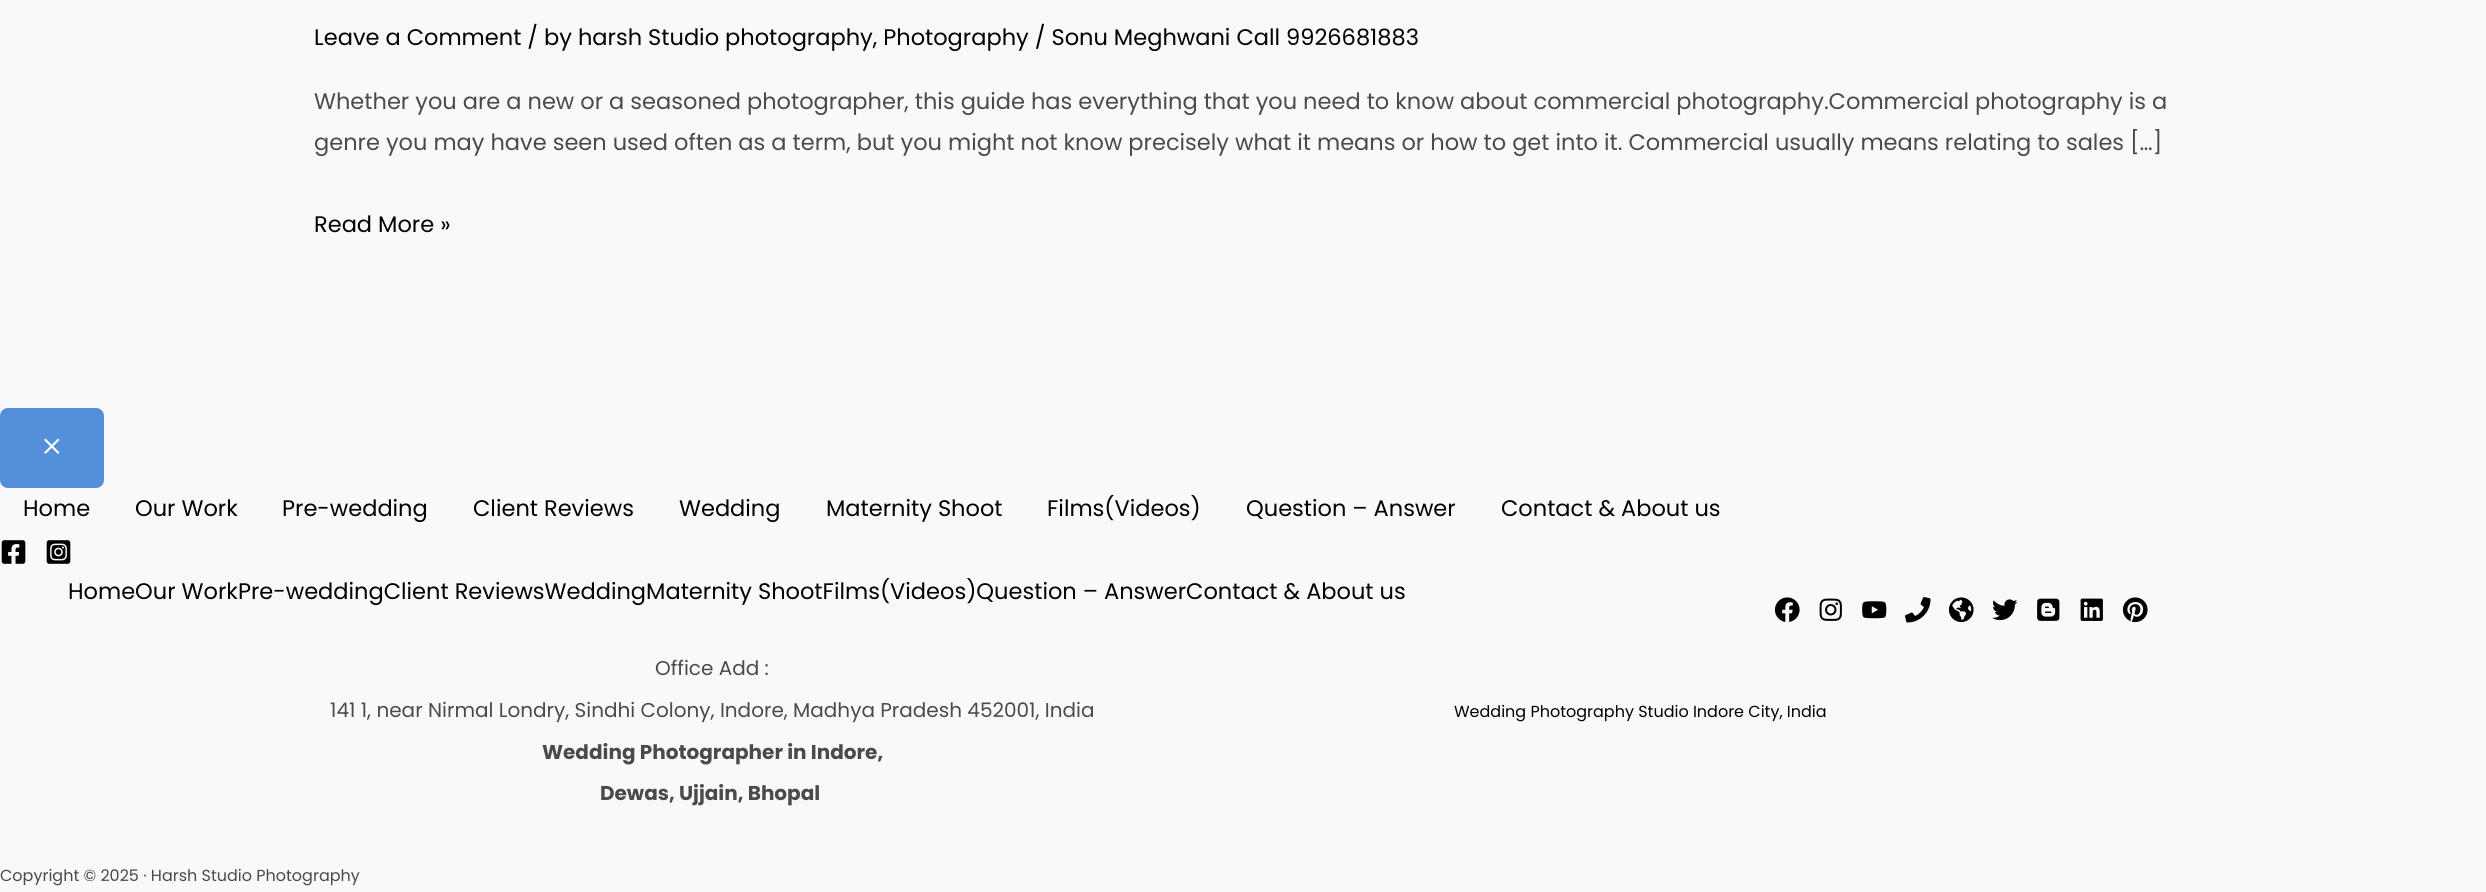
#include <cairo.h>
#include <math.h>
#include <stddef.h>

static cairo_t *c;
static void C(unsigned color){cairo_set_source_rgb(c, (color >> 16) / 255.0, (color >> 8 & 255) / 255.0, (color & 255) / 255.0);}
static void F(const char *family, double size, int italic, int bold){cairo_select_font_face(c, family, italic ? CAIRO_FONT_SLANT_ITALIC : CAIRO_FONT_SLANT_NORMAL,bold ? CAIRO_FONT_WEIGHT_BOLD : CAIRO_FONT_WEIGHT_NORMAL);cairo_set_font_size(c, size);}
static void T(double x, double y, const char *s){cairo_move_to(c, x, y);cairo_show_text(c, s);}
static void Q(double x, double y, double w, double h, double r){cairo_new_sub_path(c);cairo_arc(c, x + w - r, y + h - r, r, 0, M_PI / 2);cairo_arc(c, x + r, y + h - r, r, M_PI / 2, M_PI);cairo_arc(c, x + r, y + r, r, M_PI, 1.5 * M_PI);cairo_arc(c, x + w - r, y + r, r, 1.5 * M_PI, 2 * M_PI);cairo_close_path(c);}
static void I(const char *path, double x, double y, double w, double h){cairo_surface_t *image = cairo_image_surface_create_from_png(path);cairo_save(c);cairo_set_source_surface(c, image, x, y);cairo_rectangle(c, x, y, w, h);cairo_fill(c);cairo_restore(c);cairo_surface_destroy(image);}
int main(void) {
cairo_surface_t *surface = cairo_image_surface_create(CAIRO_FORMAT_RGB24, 2486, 892);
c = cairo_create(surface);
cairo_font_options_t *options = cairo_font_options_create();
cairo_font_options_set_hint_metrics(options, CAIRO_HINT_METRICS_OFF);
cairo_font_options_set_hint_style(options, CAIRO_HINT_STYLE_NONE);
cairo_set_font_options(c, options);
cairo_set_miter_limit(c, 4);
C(0xf7f9fb);
cairo_paint(c);
F("Poppins",22.5,0,0);
C(0x000000);
T(314,45,"Leave a Comment / by harsh Studio photography, Photography / Sonu Meghwani Call 9926681883");
C(0x4a4a4a);
T(314,109,"Whether you are a new or a seasoned photographer, this guide has everything that you need to know about commercial photography.Commercial photography is a");
T(314,150,"genre you may have seen used often as a term, but you might not know precisely what it means or how to get into it. Commercial usually means relating to sales […]");
C(0x000000);
T(314,232,"Read More »");
C(0x5390d9);
Q(0,408,104,80,8);
cairo_fill(c);
I("1.png",44,438,16,16);
C(0x000000);
T(23,516,"Home");
T(135,516,"Our Work");
T(282,516,"Pre-wedding");
T(473,516,"Client Reviews");
T(679,516,"Wedding");
T(826,516,"Maternity Shoot");
T(1047,516,"Films(Videos)");
T(1246,516,"Question – Answer");
T(1501,516,"Contact & About us");
I("2.png",1,540,25,24);
I("3.png",46,540,25,24);
T(68,599,"HomeOur WorkPre-weddingClient ReviewsWeddingMaternity ShootFilms(Videos)Question – AnswerContact & About us");
I("4.png",1775,597,25,25);
I("5.png",1819,598,23,23);
I("6.png",1862,601,25,18);
I("7.png",1905,597,26,26);
I("8.png",1949,597,25,26);
I("9.png",1992,599,26,22);
I("10.png",2037,598,23,23);
I("11.png",2080,598,23,23);
I("12.png",2123,597,25,26);
F("Poppins",20,0,0);
C(0x4a4a4a);
T(655,675,"Office Add :");
T(330,717,"141 1, near Nirmal Londry, Sindhi Colony, Indore, Madhya Pradesh 452001, India");
F("Poppins",20,0,1);
T(542,759,"Wedding Photographer in Indore,");
T(600,800,"Dewas, Ujjain, Bhopal");
F("Poppins",16,0,0);
C(0x000000);
T(1454,717,"Wedding Photography Studio Indore City, India");
C(0x4a4a4a);
T(0,881,"Copyright © 2025 · Harsh Studio Photography");
cairo_surface_write_to_png(surface, "o.png");
cairo_font_options_destroy(options);
cairo_destroy(c);
cairo_surface_destroy(surface);
return 0;
}
